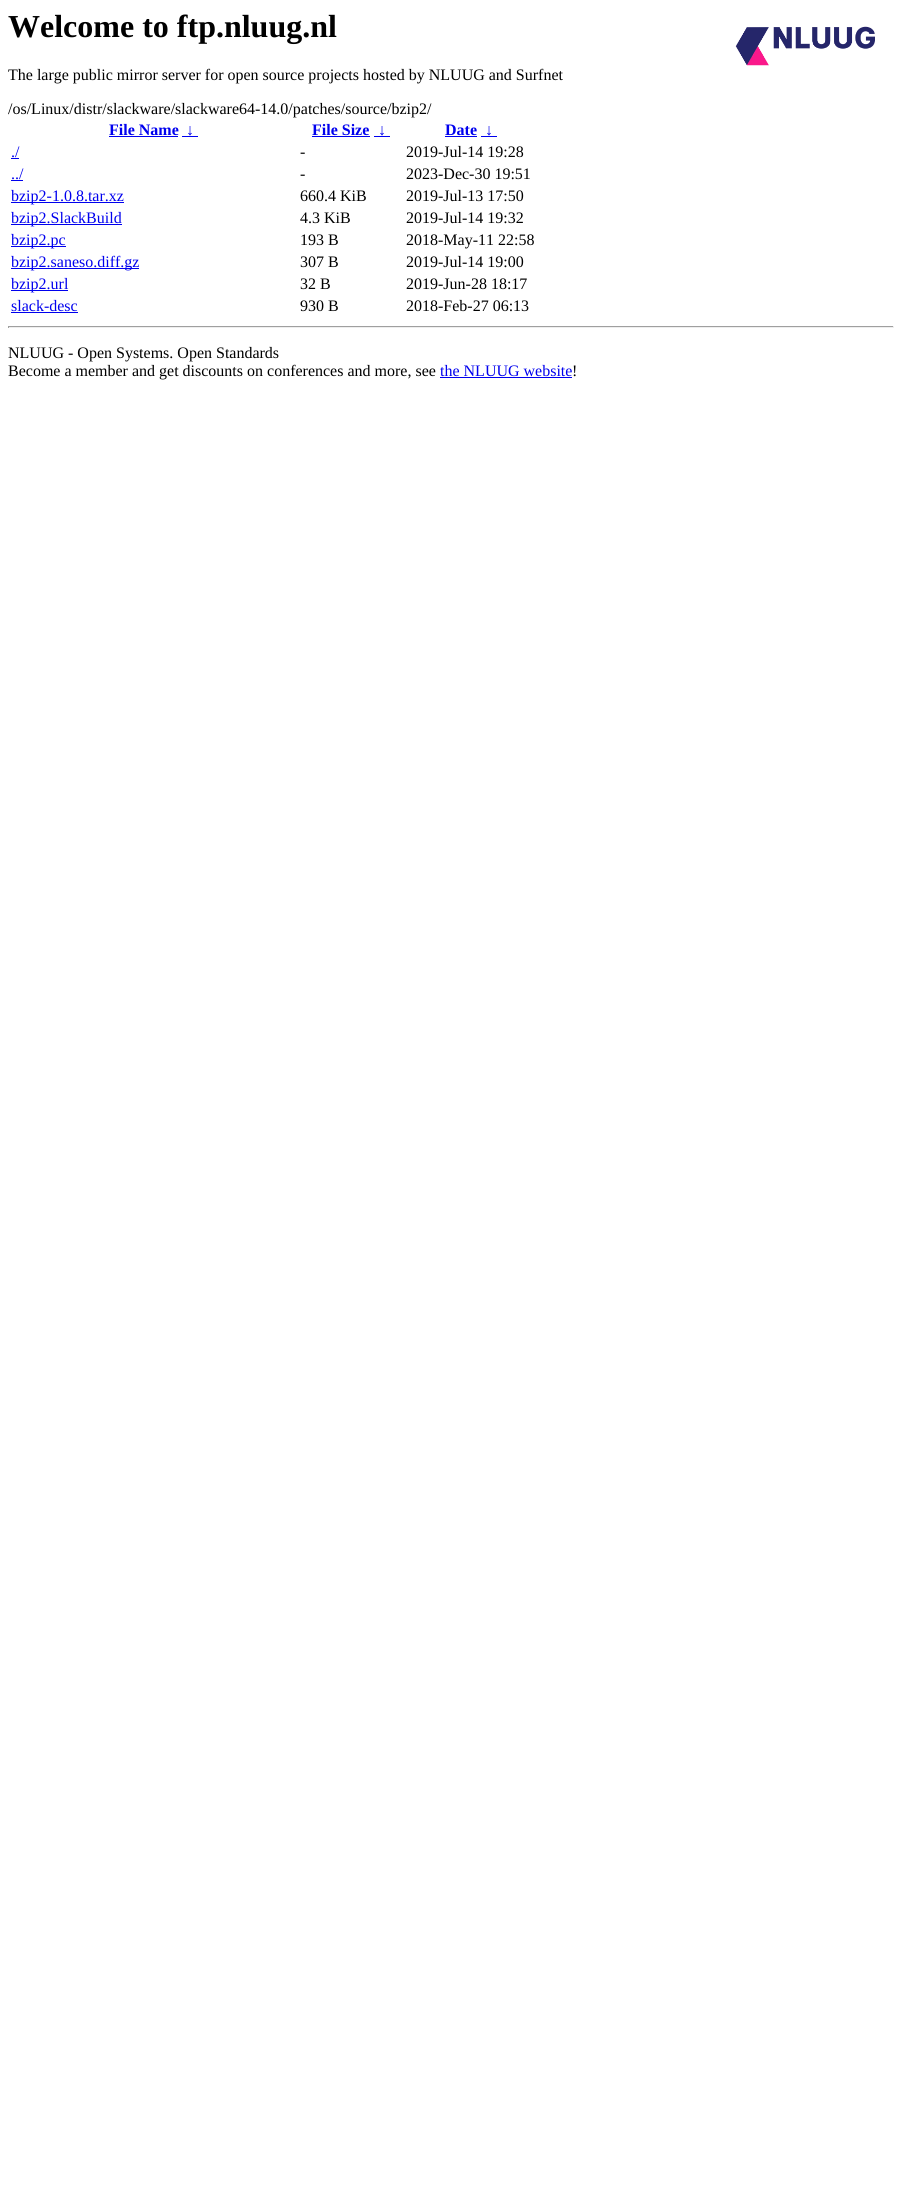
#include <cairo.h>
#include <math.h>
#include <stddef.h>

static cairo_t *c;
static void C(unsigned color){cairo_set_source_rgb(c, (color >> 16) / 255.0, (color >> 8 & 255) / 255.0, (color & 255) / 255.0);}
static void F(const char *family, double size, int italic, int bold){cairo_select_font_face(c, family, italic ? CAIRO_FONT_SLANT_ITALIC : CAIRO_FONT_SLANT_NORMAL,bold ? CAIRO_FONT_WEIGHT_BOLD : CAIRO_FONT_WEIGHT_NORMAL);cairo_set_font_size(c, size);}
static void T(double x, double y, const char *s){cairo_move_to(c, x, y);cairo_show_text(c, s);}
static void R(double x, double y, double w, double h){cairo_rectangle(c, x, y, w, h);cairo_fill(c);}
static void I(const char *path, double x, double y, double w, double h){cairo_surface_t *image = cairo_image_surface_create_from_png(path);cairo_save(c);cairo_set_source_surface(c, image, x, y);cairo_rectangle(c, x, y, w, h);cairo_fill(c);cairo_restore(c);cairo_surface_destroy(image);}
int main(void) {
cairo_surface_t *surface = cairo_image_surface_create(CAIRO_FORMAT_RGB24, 902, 2190);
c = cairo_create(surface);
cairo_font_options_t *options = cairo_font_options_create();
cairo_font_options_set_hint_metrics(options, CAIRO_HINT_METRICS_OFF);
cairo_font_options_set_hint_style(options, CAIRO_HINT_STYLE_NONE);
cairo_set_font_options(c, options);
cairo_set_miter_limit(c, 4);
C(0xffffff);
cairo_paint(c);
F("Liberation Serif",32,0,1);
C(0x000000);
T(8,37,"Welcome to ftp.nluug.nl");
I("1.png",735,26,140,40);
F("Liberation Serif",16,0,0);
T(8,80,"The large public mirror server for open source projects hosted by NLUUG and Surfnet");
T(8,114,"/os/Linux/distr/slackware/slackware64-14.0/patches/source/bzip2/");
F("Liberation Serif",16,0,1);
C(0x0000ee);
T(109,135,"File Name");
R(109,136,69,1);
T(186,135,"↓");
R(182,136,16,1);
T(312,135,"File Size");
R(312,136,58,1);
T(378,135,"↓");
R(374,136,16,1);
T(445,135,"Date");
R(445,136,32,1);
T(485,135,"↓");
R(481,136,16,1);
F("Liberation Serif",16,0,0);
T(11,157,"./");
R(11,158,8,1);
C(0x000000);
T(300,157,"-");
T(406,157,"2019-Jul-14 19:28");
C(0x0000ee);
T(11,179,"../");
R(11,180,12,1);
C(0x000000);
T(300,179,"-");
T(406,179,"2023-Dec-30 19:51");
C(0x0000ee);
R(11,202,113,1);
T(11,201,"bzip2-1.0.8.tar.xz");
C(0x000000);
T(300,201,"660.4 KiB");
T(406,201,"2019-Jul-13 17:50");
C(0x0000ee);
R(11,224,111,1);
T(11,223,"bzip2.SlackBuild");
C(0x000000);
T(300,223,"4.3 KiB");
T(406,223,"2019-Jul-14 19:32");
C(0x0000ee);
R(11,246,55,1);
T(11,245,"bzip2.pc");
C(0x000000);
T(300,245,"193 B");
T(406,245,"2018-May-11 22:58");
C(0x0000ee);
R(11,268,128,1);
T(11,267,"bzip2.saneso.diff.gz");
C(0x000000);
T(300,267,"307 B");
T(406,267,"2019-Jul-14 19:00");
C(0x0000ee);
R(11,290,57,1);
T(11,289,"bzip2.url");
C(0x000000);
T(300,289,"32 B");
T(406,289,"2019-Jun-28 18:17");
C(0x0000ee);
T(11,311,"slack-desc");
R(11,312,67,1);
C(0x000000);
T(300,311,"930 B");
T(406,311,"2018-Feb-27 06:13");
C(0x9f9f9f);
R(8,326,886,1);
C(0xeeeeee);
R(893,326,1,2);
R(8,327,886,1);
C(0x9f9f9f);
R(8,326,1,2);
C(0x000000);
T(8,358,"NLUUG - Open Systems. Open Standards");
T(8,376,"Become a member and get discounts on conferences and more, see");
C(0x0000ee);
T(440,376,"the NLUUG website");
R(440,377,132,1);
C(0x000000);
T(572,376,"!");
cairo_surface_write_to_png(surface, "o.png");
cairo_font_options_destroy(options);
cairo_destroy(c);
cairo_surface_destroy(surface);
return 0;
}
